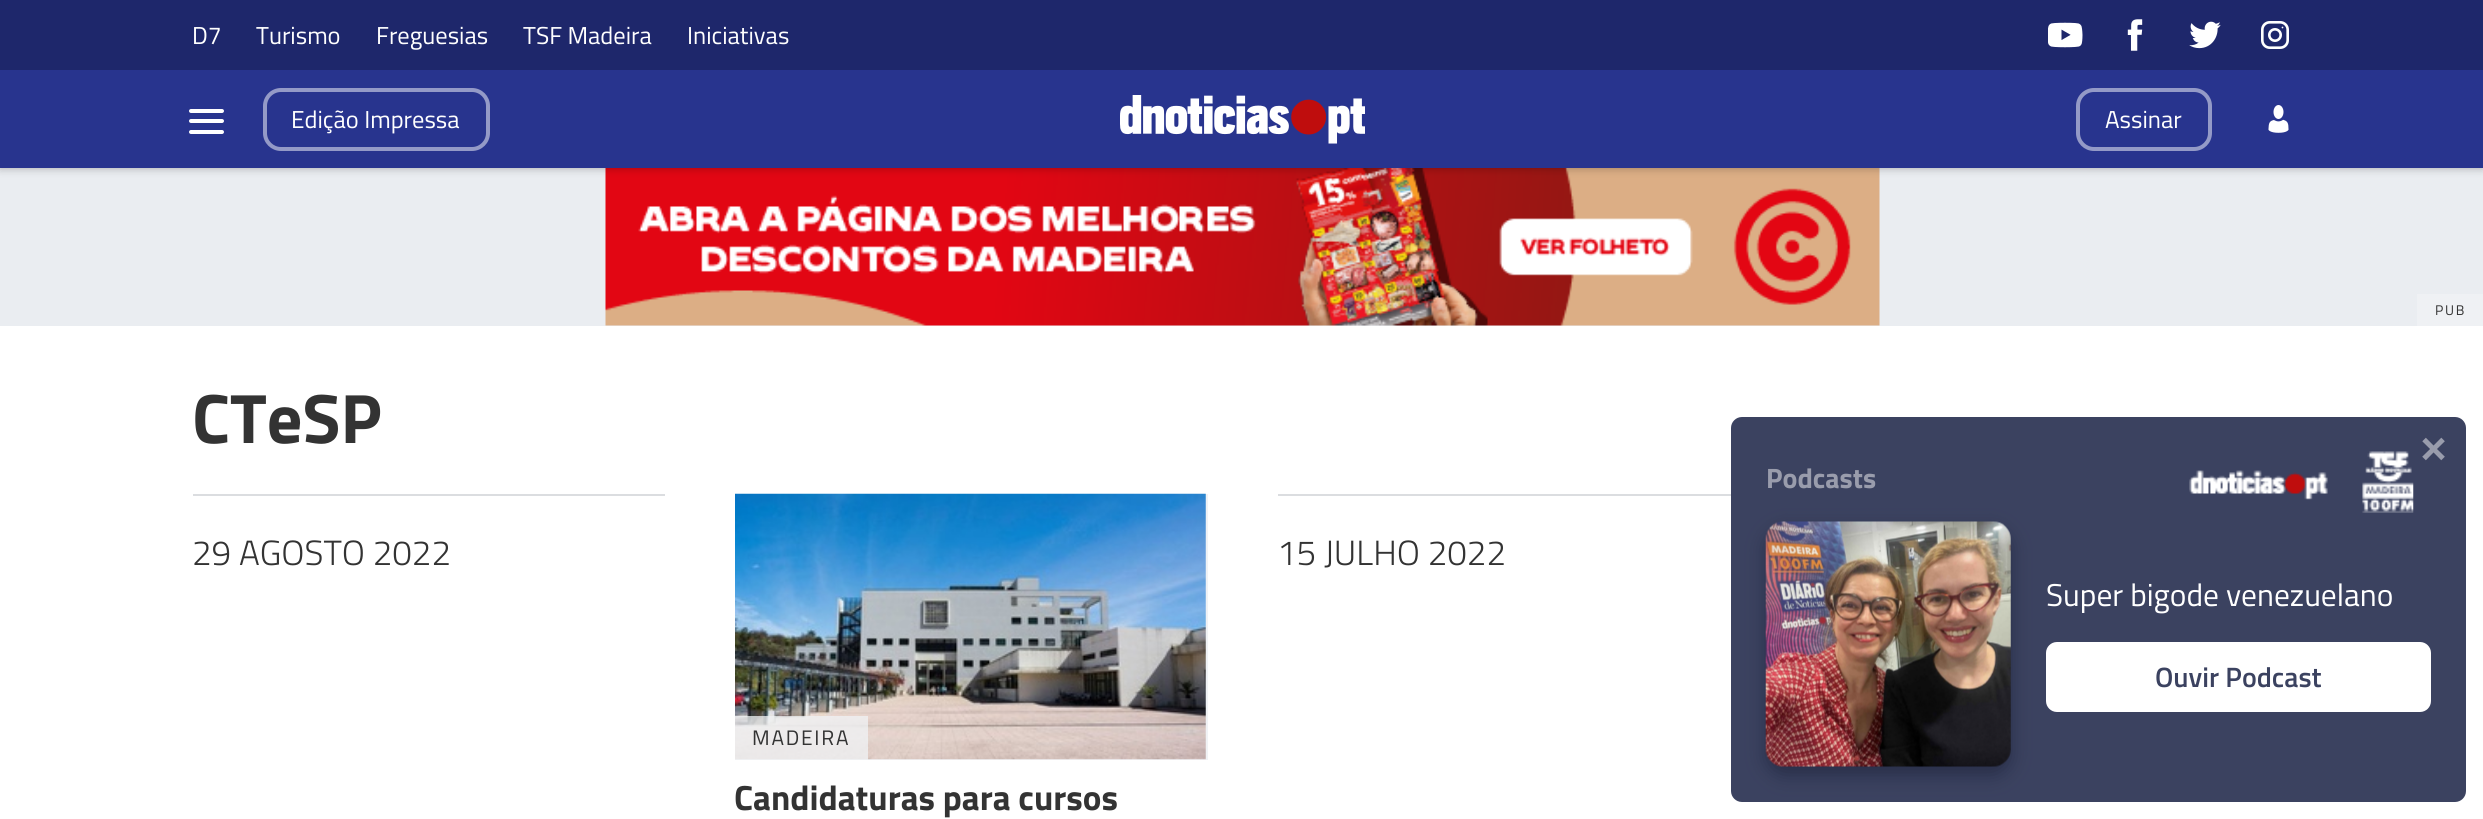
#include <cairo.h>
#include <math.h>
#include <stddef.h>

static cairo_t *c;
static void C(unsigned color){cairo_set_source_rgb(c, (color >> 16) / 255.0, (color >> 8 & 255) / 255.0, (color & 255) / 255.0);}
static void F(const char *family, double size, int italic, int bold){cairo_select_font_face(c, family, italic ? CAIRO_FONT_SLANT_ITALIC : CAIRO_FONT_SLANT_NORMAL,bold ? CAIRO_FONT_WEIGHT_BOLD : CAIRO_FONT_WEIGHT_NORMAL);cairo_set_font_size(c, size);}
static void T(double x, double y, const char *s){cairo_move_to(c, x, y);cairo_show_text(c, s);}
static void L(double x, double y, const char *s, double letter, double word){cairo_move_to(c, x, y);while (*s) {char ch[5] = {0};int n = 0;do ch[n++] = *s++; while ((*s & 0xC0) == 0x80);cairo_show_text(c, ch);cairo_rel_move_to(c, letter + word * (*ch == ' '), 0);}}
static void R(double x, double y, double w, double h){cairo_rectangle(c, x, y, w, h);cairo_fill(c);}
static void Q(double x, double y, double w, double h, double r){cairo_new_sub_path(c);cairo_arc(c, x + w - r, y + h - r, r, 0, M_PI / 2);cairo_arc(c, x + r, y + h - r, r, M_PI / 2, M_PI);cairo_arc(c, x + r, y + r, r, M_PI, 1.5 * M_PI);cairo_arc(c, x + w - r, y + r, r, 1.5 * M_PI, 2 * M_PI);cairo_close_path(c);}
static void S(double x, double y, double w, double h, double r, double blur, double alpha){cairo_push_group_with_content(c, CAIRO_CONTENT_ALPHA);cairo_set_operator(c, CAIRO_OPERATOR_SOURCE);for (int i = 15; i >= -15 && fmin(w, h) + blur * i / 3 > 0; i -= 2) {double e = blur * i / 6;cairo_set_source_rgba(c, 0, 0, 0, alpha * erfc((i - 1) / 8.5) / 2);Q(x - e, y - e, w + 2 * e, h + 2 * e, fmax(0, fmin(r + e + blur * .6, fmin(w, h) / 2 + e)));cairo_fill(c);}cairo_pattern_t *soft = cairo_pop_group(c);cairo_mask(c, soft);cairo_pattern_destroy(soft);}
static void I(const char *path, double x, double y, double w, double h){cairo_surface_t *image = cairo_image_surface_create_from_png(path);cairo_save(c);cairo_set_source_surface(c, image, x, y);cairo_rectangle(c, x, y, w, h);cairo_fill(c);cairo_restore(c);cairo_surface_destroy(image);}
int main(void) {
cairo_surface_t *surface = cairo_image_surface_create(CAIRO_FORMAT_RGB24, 2483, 819);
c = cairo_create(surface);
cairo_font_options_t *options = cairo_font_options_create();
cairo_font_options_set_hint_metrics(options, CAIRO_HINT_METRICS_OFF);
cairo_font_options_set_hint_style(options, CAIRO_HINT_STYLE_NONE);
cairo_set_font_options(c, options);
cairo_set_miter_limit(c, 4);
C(0xffffff);
cairo_paint(c);
C(0xeaedf1);
R(0,168,2483,158);
I("7.png",605,168,1275,158);
C(0x000000);
S(0,0,2483,168,0,4.5,.3);
C(0x28348e);
R(0,70,2483,98);
C(0x1e276b);
R(0,0,2483,70);
F("Titillium Web",24.5,0,0);
C(0xffffff);
T(192,44,"D7");
T(256,44,"Turismo");
T(376,44,"Freguesias");
T(523,44,"TSF Madeira");
T(687,44,"Iniciativas");
I("1.png",2048,22,35,26);
I("2.png",2127,19,16,32);
I("3.png",2189,21,32,28);
I("4.png",2261,21,28,28);
I("5.png",1120,95,245,49);
I("6.png",2268,105,21,28);
Q(189,109,35,4,2);
cairo_fill(c);
Q(189,119,35,4,2);
cairo_fill(c);
Q(189,130,35,4,2);
cairo_fill(c);
Q(265,90,223,59,16);
C(0x949ac7);
cairo_set_line_width(c,4);
cairo_stroke(c);
C(0xffffff);
T(291,128,"Edição Impressa");
Q(2078,90,132,59,16);
C(0x949ac7);
cairo_stroke(c);
C(0xffffff);
T(2105,128,"Assinar");
C(0xeff1f4);
R(2417,294,66,32);
F("Titillium Web",14,0,0);
C(0x333333);
L(2435,315,"PUB",1.75,0);
F("Titillium Web",70,0,1);
T(192,443,"CTeSP");
C(0xdbdde0);
R(193,494,472,2);
F("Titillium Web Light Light",35,0,0);
C(0x333333);
T(192,565,"29 AGOSTO 2022");
C(0xdbdde0);
R(1278,494,453,2);
C(0x333333);
T(1277,565,"15 JULHO 2022");
C(0xf0f2f5);
R(735,494,473,266);
I("8.png",735,493,471,267);
cairo_set_source_rgba(c,0.941,0.949,0.961,0.75);
R(735,716,133,44);
F("Titillium Web",21,0,0);
C(0x333333);
L(752,745,"MADEIRA",1.75,0);
F("Titillium Web",35,0,1);
T(734,810,"Candidaturas para cursos");
C(0x3b4260);
Q(1731,417,735,385,11);
cairo_fill(c);
F("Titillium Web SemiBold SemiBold",52,0,0);
C(0x999cac);
T(2419,462,"×");
F("Titillium Web",28,0,1);
T(1766,488,"Podcasts");
I("9.png",2189,451,225,62);
C(0x282e48);
S(1766,530,245,245,18,9,1);
I("10.png",1765,521,246,246);
F("Titillium Web",31.5,0,0);
C(0xffffff);
T(2046,606,"Super bigode venezuelano");
Q(2046,642,385,70,11);
cairo_fill(c);
F("Titillium Web SemiBold SemiBold",28,0,0);
C(0x3b4260);
T(2155,687,"Ouvir Podcast");
cairo_surface_write_to_png(surface, "o.png");
cairo_font_options_destroy(options);
cairo_destroy(c);
cairo_surface_destroy(surface);
return 0;
}
